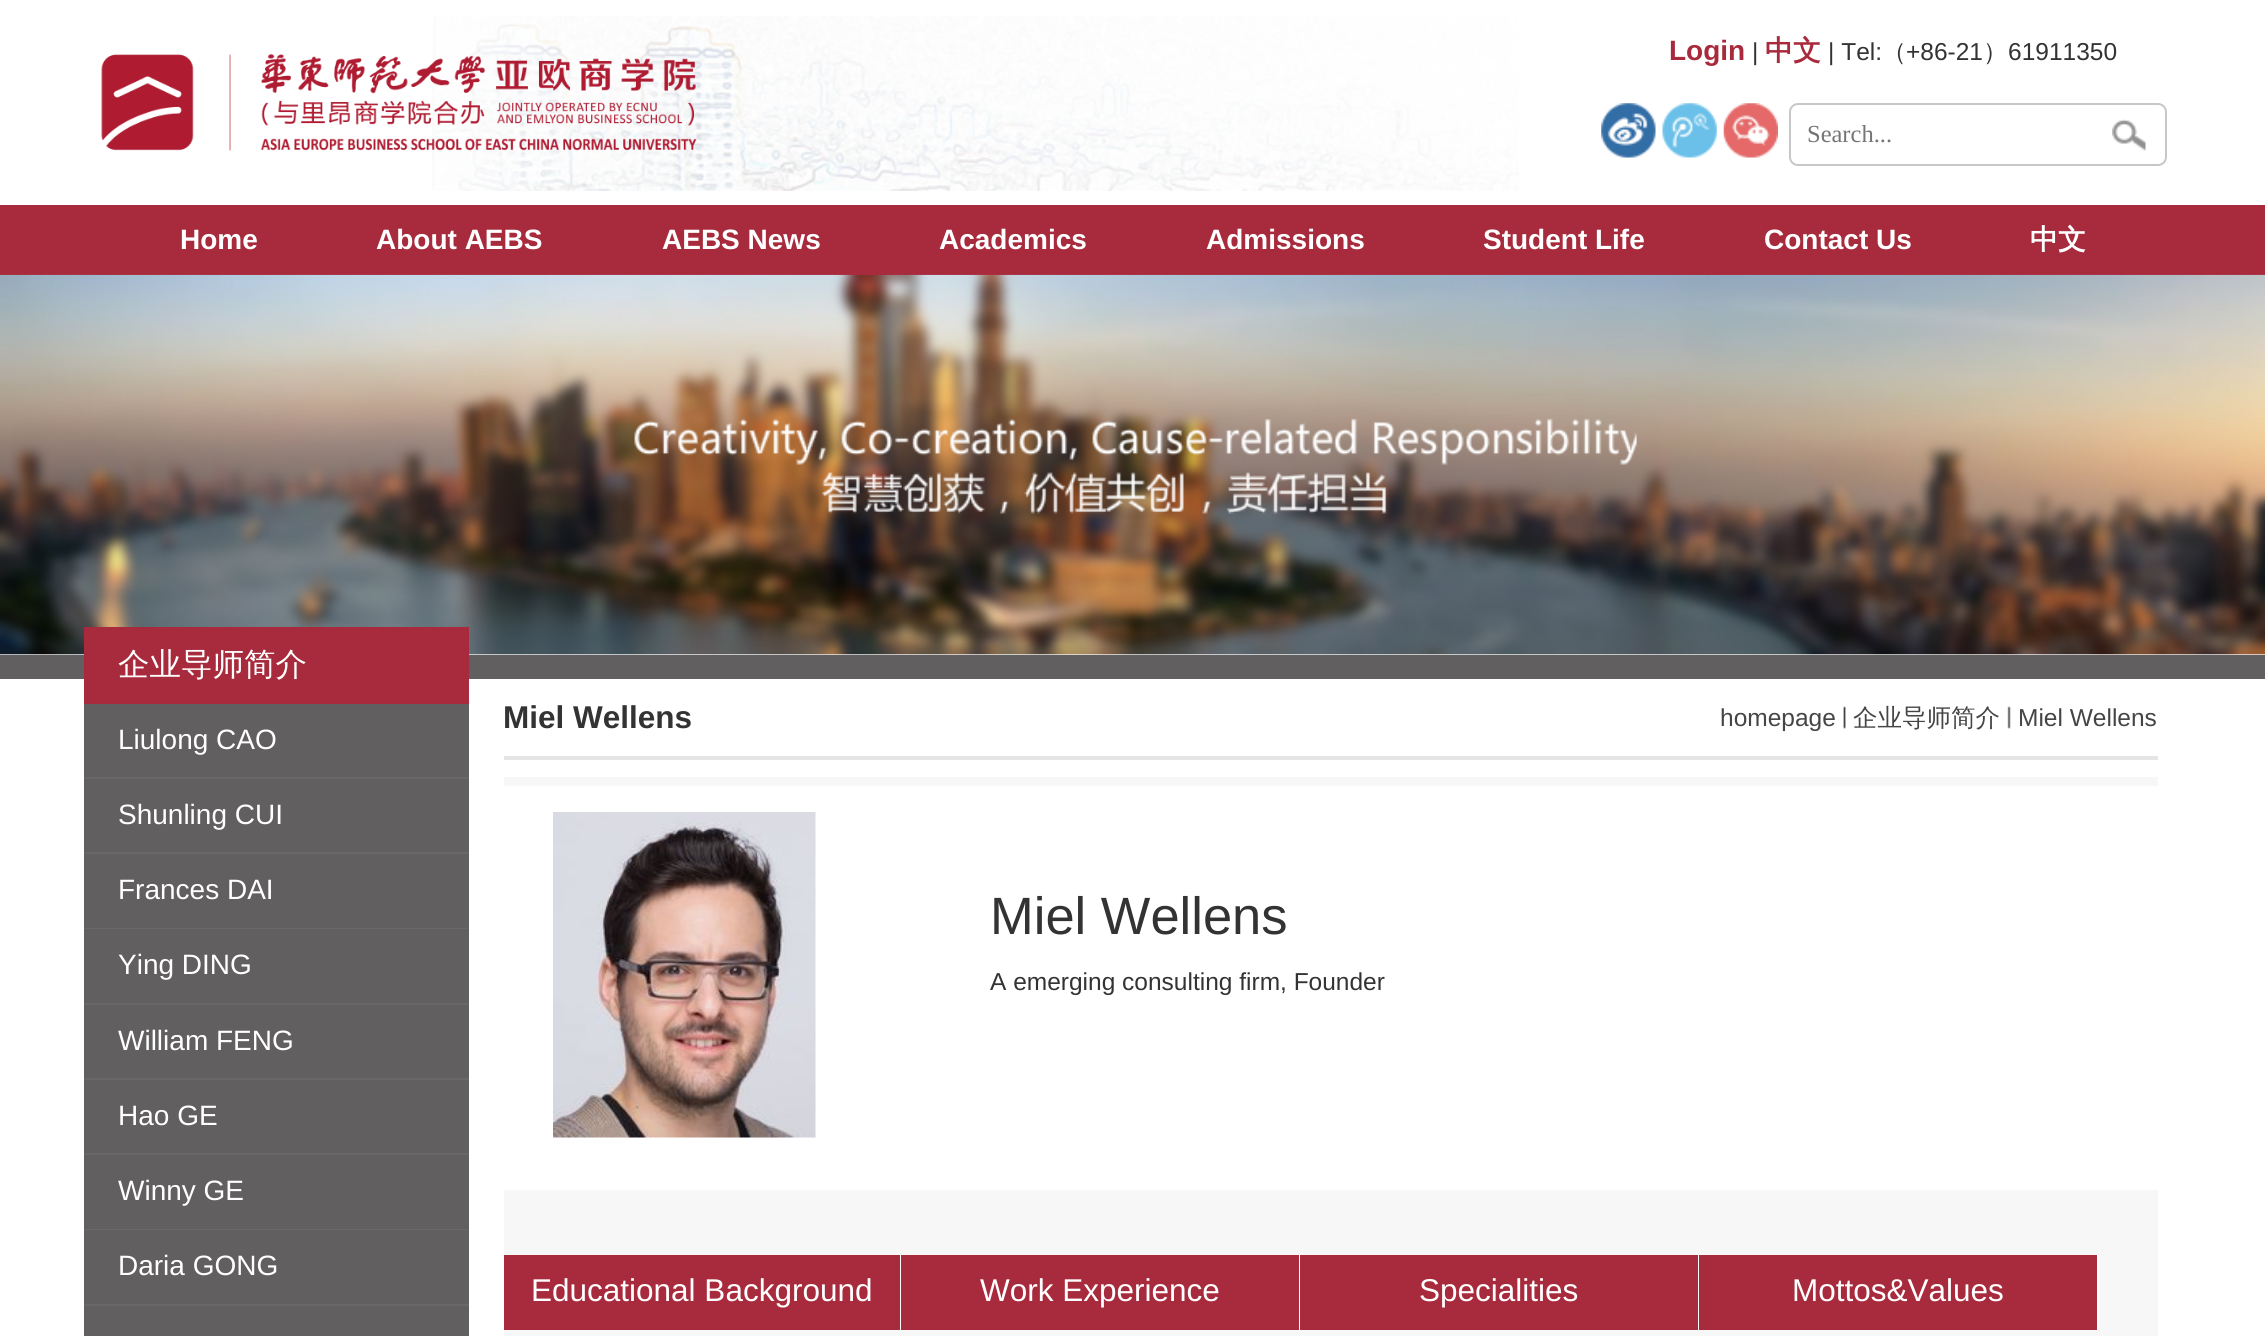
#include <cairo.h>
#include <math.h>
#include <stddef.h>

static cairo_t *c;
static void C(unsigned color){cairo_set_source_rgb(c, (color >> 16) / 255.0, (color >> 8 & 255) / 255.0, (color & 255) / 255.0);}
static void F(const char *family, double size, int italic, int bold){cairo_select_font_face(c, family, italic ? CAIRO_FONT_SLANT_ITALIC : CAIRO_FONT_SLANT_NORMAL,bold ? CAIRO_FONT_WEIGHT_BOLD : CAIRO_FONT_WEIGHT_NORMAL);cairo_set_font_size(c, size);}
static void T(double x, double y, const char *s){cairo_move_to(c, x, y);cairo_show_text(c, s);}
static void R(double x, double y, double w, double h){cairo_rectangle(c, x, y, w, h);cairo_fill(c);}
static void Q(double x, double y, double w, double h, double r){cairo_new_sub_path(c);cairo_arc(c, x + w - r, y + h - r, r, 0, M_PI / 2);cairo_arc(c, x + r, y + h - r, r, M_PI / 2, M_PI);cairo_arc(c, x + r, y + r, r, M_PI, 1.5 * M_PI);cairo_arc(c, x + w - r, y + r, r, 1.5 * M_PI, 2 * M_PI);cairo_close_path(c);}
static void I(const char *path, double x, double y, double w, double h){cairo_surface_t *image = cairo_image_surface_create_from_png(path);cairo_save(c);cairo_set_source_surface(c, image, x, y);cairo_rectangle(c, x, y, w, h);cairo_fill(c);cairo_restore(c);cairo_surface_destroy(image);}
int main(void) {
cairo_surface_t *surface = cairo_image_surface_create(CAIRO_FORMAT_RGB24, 2265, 1336);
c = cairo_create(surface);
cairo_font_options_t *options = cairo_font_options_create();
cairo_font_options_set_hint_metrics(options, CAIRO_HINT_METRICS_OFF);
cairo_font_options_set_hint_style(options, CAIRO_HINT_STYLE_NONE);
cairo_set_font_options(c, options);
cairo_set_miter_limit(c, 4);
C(0x615f60);
cairo_paint(c);
C(0xffffff);
R(0,0,2265,205);
I("1.png",432,16,1087,175);
F("Liberation Sans",28,0,1);
C(0xa82b3d);
T(1669,60,"Login");
F("Liberation Sans",24.5,0,0);
C(0x333333);
T(1752,60,"|");
F("WenQuanYi Zen Hei",28,0,1);
C(0xa82b3d);
T(1765,60,"中文");
F("Liberation Sans",24.5,0,0);
C(0x333333);
T(1828,60,"| Tel:");
F("WenQuanYi Zen Hei Medium",24.5,0,0);
T(1882,60,"（");
F("Liberation Sans",24.5,0,0);
T(1906,60,"+86-21");
F("WenQuanYi Zen Hei Medium",24.5,0,0);
T(1983,60,"）");
F("Liberation Sans",24.5,0,0);
T(2008,60,"61911350");
I("2.png",101,54,596,97);
I("3.png",1601,103,55,55);
I("4.png",1662,103,55,55);
I("5.png",1723,103,55,55);
Q(1790,104,376,61,8);
C(0xc7c7c7);
cairo_stroke(c);
F("Liberation Serif",24.5,0,0);
C(0x757575);
T(1807,142,"Search...");
I("6.png",2112,119,34,32);
C(0xa82b3d);
R(0,205,2265,70);
F("Liberation Sans",28,0,1);
C(0xffffff);
T(180,249,"Home");
T(376,249,"About AEBS");
T(662,249,"AEBS News");
T(939,249,"Academics");
T(1206,249,"Admissions");
T(1483,249,"Student Life");
T(1764,249,"Contact Us");
F("WenQuanYi Zen Hei",28,0,1);
T(2030,249,"中文");
C(0xececec);
R(0,654,2265,1);
I("7.png",0,274,2265,381);
C(0xffffff);
R(0,679,2265,657);
C(0xa82b3d);
R(84,627,385,77);
F("WenQuanYi Zen Hei Medium",31.5,0,0);
C(0xffffff);
T(118,675,"企业导师简介");
C(0x615f60);
R(84,704,385,73);
C(0x696768);
R(84,777,385,2);
F("Liberation Sans",28,0,0);
C(0xffffff);
T(118,749,"Liulong CAO");
C(0x615f60);
R(84,779,385,73);
C(0x696768);
R(84,852,385,2);
C(0xffffff);
T(118,824,"Shunling CUI");
C(0x615f60);
R(84,854,385,74);
C(0x696768);
R(84,928,385,1);
C(0xffffff);
T(118,899,"Frances DAI");
C(0x615f60);
R(84,929,385,74);
C(0x696768);
R(84,1003,385,2);
C(0xffffff);
T(118,974,"Ying DING");
C(0x615f60);
R(84,1005,385,73);
C(0x696768);
R(84,1078,385,2);
C(0xffffff);
T(118,1050,"William FENG");
C(0x615f60);
R(84,1080,385,73);
C(0x696768);
R(84,1153,385,2);
C(0xffffff);
T(118,1125,"Hao GE");
C(0x615f60);
R(84,1155,385,74);
C(0x696768);
R(84,1229,385,1);
C(0xffffff);
T(118,1200,"Winny GE");
C(0x615f60);
R(84,1230,385,74);
C(0x696768);
R(84,1304,385,2);
C(0xffffff);
T(118,1275,"Daria GONG");
C(0x615f60);
R(84,1306,385,30);
C(0xe5e5e5);
R(504,756,1654,4);
F("Liberation Sans",31.5,0,1);
C(0x333333);
T(503,728,"Miel Wellens");
F("Liberation Sans",24.5,0,0);
C(0x454545);
T(1720,726,"homepage");
I("8.png",1843,706,3,23);
F("WenQuanYi Zen Hei Medium",24.5,0,0);
T(1853,726,"企业导师简介");
I("9.png",2007,706,4,23);
F("Liberation Sans",24.5,0,0);
T(2018,726,"Miel Wellens");
C(0xf7f7f7);
R(504,777,1654,559);
C(0xffffff);
R(504,786,1654,404);
I("10.png",553,812,263,326);
F("Liberation Sans",52.5,0,0);
C(0x333333);
T(990,934,"Miel Wellens");
F("Liberation Sans",24.5,0,0);
T(990,990,"A emerging consulting firm, Founder");
C(0xffffff);
R(900,1255,1,75);
C(0xa82b3d);
R(504,1255,396,75);
F("Liberation Sans",31.5,0,0);
C(0xffffff);
T(531,1301,"Educational Background");
R(1299,1255,1,75);
C(0xa82b3d);
R(901,1255,398,75);
C(0xffffff);
T(980,1301,"Work Experience");
R(1698,1255,1,75);
C(0xa82b3d);
R(1300,1255,398,75);
C(0xffffff);
T(1419,1301,"Specialities");
R(2097,1255,2,75);
C(0xa82b3d);
R(1699,1255,398,75);
C(0xffffff);
T(1792,1301,"Mottos&Values");
cairo_surface_write_to_png(surface, "o.png");
cairo_font_options_destroy(options);
cairo_destroy(c);
cairo_surface_destroy(surface);
return 0;
}
